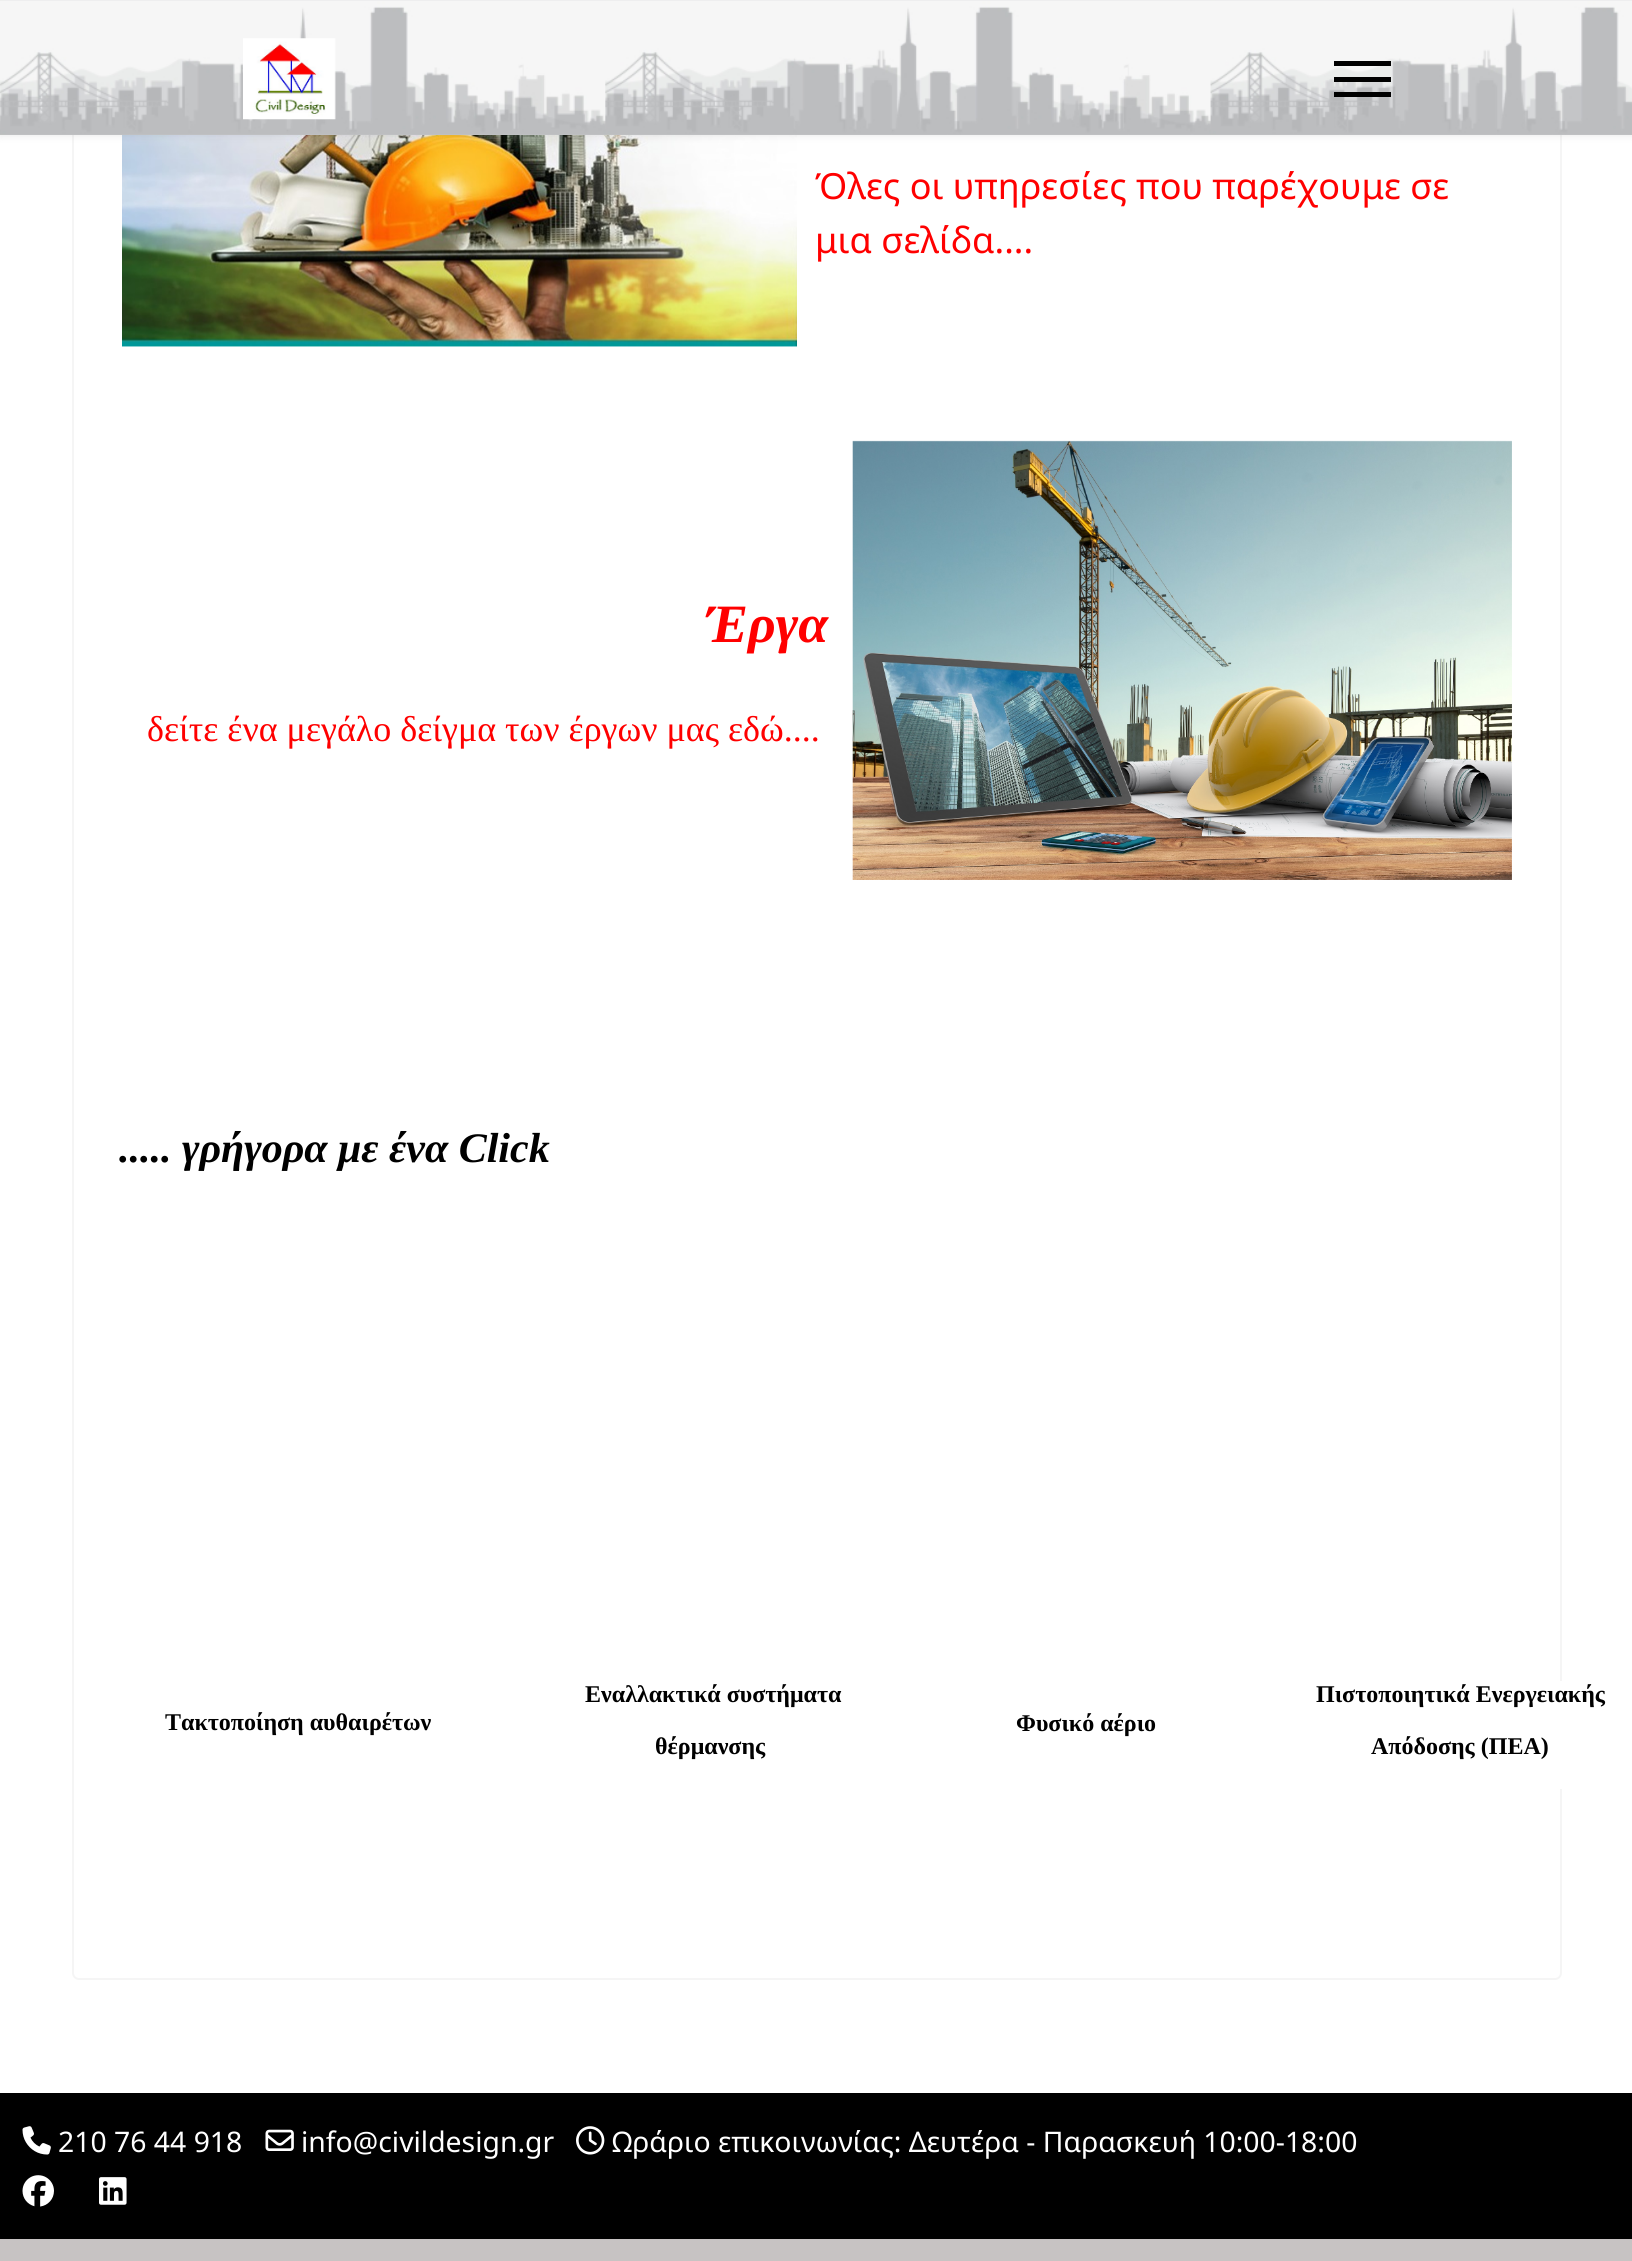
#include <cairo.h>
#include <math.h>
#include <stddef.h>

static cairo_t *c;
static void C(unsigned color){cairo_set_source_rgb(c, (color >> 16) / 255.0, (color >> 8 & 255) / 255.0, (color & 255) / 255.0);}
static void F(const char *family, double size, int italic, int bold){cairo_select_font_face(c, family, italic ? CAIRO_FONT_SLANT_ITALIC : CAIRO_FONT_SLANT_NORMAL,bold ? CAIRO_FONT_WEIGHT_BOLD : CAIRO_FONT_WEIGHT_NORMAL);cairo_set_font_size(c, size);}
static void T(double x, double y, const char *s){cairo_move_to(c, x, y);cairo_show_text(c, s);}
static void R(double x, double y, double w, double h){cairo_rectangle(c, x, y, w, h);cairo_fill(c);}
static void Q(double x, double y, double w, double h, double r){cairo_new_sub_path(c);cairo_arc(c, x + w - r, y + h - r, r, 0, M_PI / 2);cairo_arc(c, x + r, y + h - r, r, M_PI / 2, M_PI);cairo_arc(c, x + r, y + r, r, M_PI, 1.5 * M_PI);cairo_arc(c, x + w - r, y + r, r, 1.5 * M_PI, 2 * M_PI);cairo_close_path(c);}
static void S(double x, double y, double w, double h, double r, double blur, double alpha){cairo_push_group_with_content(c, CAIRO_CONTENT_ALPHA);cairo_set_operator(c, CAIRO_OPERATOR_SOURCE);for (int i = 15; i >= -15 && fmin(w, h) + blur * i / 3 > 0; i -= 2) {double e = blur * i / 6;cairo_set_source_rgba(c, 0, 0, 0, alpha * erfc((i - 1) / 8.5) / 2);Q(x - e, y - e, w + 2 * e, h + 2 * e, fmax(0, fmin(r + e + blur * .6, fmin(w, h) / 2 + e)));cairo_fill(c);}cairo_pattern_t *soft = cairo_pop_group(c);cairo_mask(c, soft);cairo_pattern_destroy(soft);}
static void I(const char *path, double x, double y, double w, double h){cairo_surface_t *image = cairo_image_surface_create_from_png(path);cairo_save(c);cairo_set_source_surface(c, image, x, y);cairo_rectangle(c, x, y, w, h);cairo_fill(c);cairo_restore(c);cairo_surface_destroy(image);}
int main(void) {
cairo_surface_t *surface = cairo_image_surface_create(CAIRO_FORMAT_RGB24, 1632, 2261);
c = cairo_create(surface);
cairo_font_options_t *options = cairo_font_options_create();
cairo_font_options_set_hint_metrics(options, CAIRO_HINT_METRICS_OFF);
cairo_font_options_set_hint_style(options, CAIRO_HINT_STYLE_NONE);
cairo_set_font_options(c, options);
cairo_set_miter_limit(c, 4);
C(0xffffff);
cairo_paint(c);
Q(73,-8,1488,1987,6);
C(0xf5f5f5);
cairo_stroke(c);
I("3.png",122,135,675,212);
C(0x000000);
S(0,0,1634,135,0,4.5,.1);
I("1.png",0,0,1632,135);
I("2.png",243,38,93,82);
C(0x000000);
R(1334,61,57,5);
R(1334,77,57,5);
R(1334,92,57,5);
F("Noto Sans",36,0,0);
C(0xff0000);
T(815,199,"Όλες οι υπηρεσίες που παρέχουμε σε");
T(815,253,"μια σελίδα....");
F("Liberation Serif",54,1,1);
T(706,642,"Έργα");
F("Liberation Serif",36,0,0);
T(147,741,"δείτε ένα μεγάλο δείγμα των έργων μας εδώ....");
I("4.png",852,440,660,440);
F("Liberation Serif",42,1,1);
C(0x000000);
T(119,1162,"..... γρήγορα με ένα Click");
F("Liberation Serif",24,0,1);
T(165,1730,"Τακτοποίηση αυθαιρέτων");
T(585,1702,"Εναλλακτικά συστήματα");
T(655,1754,"θέρμανσης");
T(1016,1731,"Φυσικό αέριο");
C(0xffffff);
R(1560,1681,2,108);
C(0x000000);
T(1316,1702,"Πιστοποιητικά Ενεργειακής");
T(1371,1754,"Απόδοσης (ΠΕΑ)");
R(0,2093,1632,146);
I("5.png",22,2126,29,29);
F("Noto Sans",28.35,0,0);
C(0xffffff);
T(58,2152,"210 76 44 918");
I("6.png",265,2129,29,22);
T(301,2152,"info@civildesign.gr");
I("7.png",576,2126,29,29);
T(612,2152,"Ωράριο επικοινωνίας: Δευτέρα - Παρασκευή 10:00-18:00");
I("8.png",22,2175,32,32);
I("9.png",99,2177,28,28);
C(0xc7c3c3);
R(0,2239,1632,22);
cairo_surface_write_to_png(surface, "o.png");
cairo_font_options_destroy(options);
cairo_destroy(c);
cairo_surface_destroy(surface);
return 0;
}
